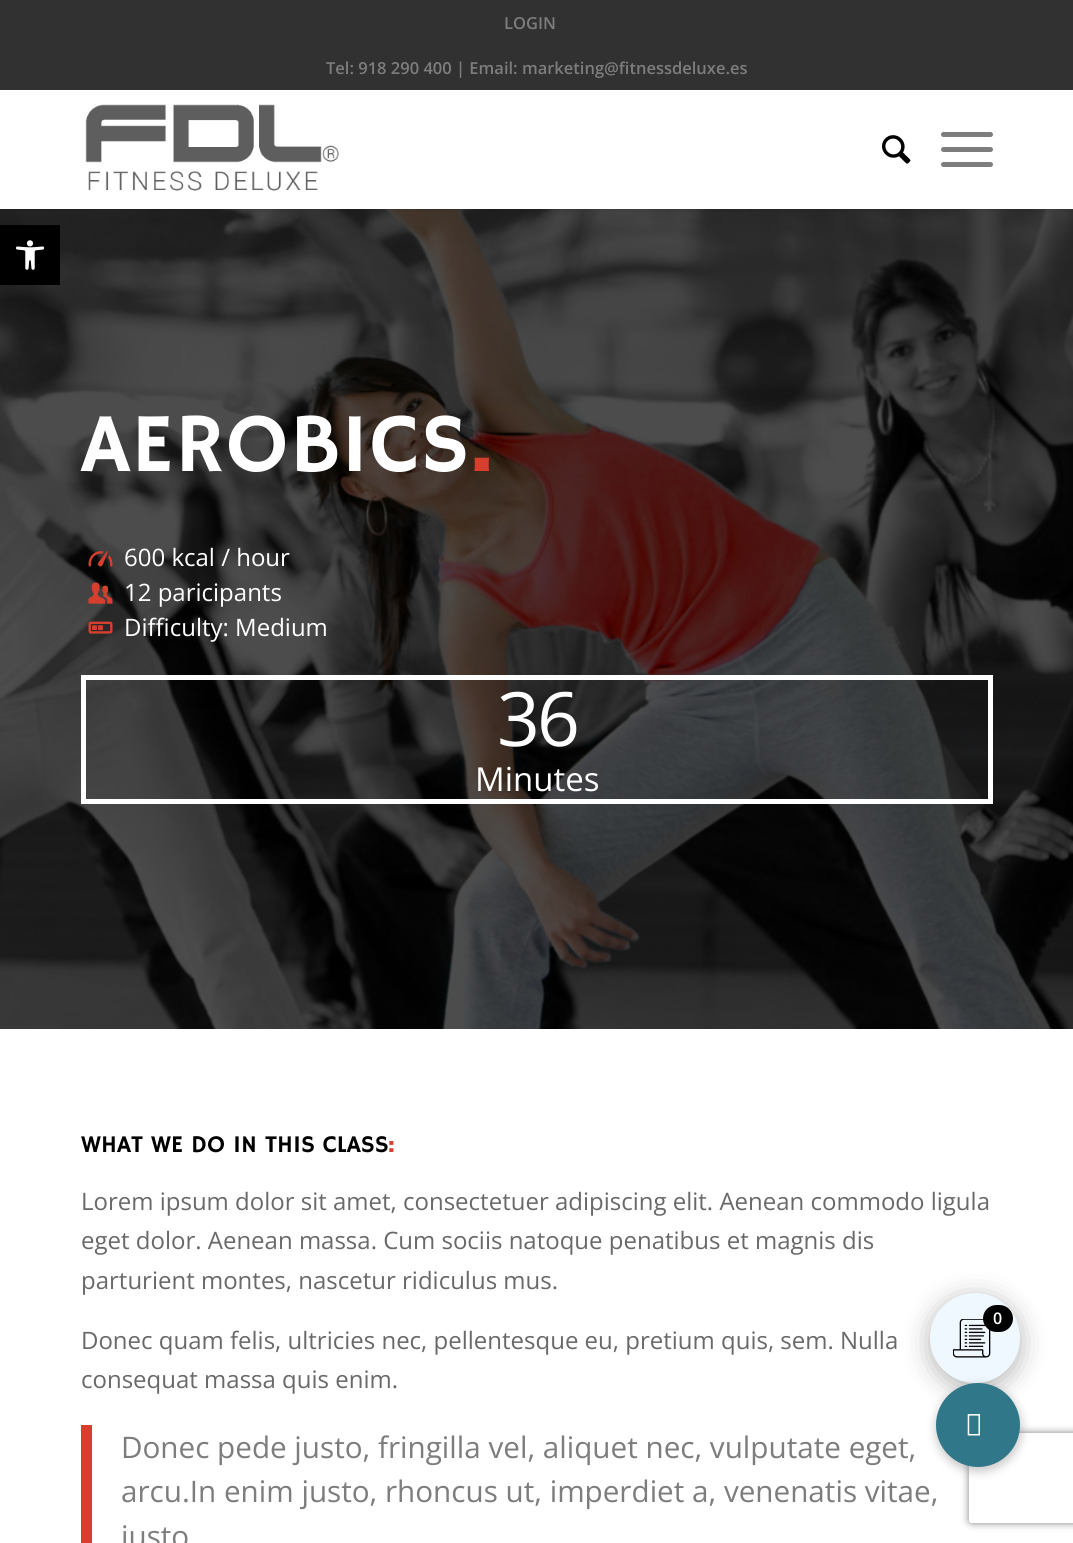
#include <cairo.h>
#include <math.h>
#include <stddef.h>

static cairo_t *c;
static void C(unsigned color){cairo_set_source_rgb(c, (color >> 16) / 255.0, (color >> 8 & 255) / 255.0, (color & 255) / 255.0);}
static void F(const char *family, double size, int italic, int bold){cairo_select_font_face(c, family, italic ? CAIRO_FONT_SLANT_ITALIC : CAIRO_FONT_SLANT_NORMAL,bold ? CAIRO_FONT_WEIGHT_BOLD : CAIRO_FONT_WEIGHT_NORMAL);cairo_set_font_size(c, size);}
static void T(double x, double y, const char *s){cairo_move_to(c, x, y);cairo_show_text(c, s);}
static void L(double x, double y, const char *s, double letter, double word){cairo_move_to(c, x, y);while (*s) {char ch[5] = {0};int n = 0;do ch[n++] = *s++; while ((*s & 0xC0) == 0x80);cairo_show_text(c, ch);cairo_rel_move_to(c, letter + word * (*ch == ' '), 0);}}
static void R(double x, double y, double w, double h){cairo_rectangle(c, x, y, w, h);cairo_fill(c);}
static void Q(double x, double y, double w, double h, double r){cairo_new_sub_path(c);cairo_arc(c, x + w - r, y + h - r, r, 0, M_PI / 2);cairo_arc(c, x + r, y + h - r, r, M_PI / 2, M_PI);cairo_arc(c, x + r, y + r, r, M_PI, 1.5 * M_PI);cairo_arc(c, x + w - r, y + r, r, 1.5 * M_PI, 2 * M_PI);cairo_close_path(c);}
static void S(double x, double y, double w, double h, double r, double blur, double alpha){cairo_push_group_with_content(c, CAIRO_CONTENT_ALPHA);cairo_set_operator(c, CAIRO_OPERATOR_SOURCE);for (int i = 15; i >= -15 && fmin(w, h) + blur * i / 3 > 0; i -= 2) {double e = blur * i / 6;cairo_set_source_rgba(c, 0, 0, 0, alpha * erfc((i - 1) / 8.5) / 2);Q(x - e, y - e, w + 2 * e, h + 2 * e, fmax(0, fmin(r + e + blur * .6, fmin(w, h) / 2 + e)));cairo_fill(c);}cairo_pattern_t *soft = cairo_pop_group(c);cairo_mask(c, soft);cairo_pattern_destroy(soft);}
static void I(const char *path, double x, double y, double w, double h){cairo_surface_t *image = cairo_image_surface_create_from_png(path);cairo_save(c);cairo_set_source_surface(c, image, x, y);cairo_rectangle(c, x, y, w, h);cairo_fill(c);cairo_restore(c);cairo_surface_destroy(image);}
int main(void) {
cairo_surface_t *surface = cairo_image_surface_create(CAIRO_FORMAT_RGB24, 1073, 1543);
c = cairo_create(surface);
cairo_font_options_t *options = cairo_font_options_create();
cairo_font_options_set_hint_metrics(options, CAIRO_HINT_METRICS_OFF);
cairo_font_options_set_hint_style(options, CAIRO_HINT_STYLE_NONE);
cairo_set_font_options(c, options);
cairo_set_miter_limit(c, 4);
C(0xffffff);
cairo_paint(c);
I("4.png",0,209,1073,820);
C(0x000000);
R(0,225,60,60);
I("1.png",16,240,29,30);
C(0x000000);
S(-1,-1,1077,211,0,1.5,.1);
C(0x313131);
R(0,0,1073,90);
F("Open Sans SemiBold",16.5,0,0);
C(0x7d7d7d);
T(504,29,"LOGIN");
T(326,74,"Tel: 918 290 400 | Email: marketing@fitnessdeluxe.es");
C(0xffffff);
R(0,90,1073,119);
I("2.png",85,104,254,87);
I("3.png",882,135,29,29);
C(0x7d7d7d);
Q(941,147,52,5,2.5);
cairo_fill(c);
Q(941,132,52,5,2.5);
cairo_fill(c);
Q(941,162,52,5,2.5);
cairo_fill(c);
F("Hammersmith One",84,0,0);
C(0xffffff);
L(81,471,"AEROBICS",1.5,0);
F("Hammersmith One",84,0,1);
C(0xd63e2d);
L(470,471,".",1.5,0);
I("5.png",88,550,25,17);
F("Open Sans",24,0,0);
C(0xffffff);
T(124,566,"600 kcal / hour");
I("6.png",88,582,25,22);
T(124,601,"12 paricipants");
I("7.png",88,621,25,13);
T(124,636,"Difficulty: Medium");
cairo_rectangle(c,83.5,677.5,907,124);
cairo_set_line_width(c,5);
cairo_stroke(c);
F("Open Sans",75,0,0);
L(497,746,"36",-3,0);
F("Open Sans",33,0,0);
T(475,791,"Minutes");
F("Hammersmith One",24,0,0);
C(0x000000);
T(81,1152,"WHAT WE DO IN THIS CLASS");
F("Hammersmith One",24,0,1);
C(0xd63e2d);
T(388,1152,":");
F("Open Sans",24,0,0);
C(0x696969);
T(81,1210,"Lorem ipsum dolor sit amet, consectetuer adipiscing elit. Aenean commodo ligula");
T(81,1249,"eget dolor. Aenean massa. Cum sociis natoque penatibus et magnis dis");
T(81,1289,"parturient montes, nascetur ridiculus mus.");
T(81,1349,"Donec quam felis, ultricies nec, pellentesque eu, pretium quis, sem. Nulla");
T(81,1388,"consequat massa quis enim.");
C(0xd63e2d);
R(81,1425,11,118);
F("Open Sans",29.65,0,0);
C(0x7d7d7d);
T(121,1458,"Donec pede justo, fringilla vel, aliquet nec, vulputate eget,");
T(121,1502,"arcu.In enim justo, rhoncus ut, imperdiet a, venenatis vitae,");
T(121,1547,"justo");
C(0x101010);
S(930,1298,90,90,45,13,.31);
C(0xf0f8ff);
cairo_arc(c,975,1338,45,0,2 * M_PI);
cairo_fill(c);
I("8.png",953,1319,38,39);
C(0x000000);
Q(983,1305,30,27,13.5);
cairo_fill(c);
F("Open Sans SemiBold",16,0,0);
C(0xffffff);
T(993,1324,"0");
C(0x000000);
S(935,1385,87,87,43.5,4.5,.2);
cairo_save(c);
cairo_set_fill_rule(c,CAIRO_FILL_RULE_EVEN_ODD);
cairo_new_path(c);
cairo_move_to(c,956,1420);
cairo_line_to(c,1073,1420);
cairo_line_to(c,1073,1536);
cairo_line_to(c,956,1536);
cairo_close_path(c);
cairo_move_to(c,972,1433);
cairo_line_to(c,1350,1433);
cairo_curve_to(c,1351.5,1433,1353,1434.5,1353,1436);
cairo_line_to(c,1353,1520);
cairo_curve_to(c,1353,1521.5,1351.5,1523,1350,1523);
cairo_line_to(c,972,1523);
cairo_curve_to(c,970.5,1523,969,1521.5,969,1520);
cairo_line_to(c,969,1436);
cairo_curve_to(c,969,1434.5,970.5,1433,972,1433);
cairo_close_path(c);
cairo_clip(c);
C(0x808080);
S(969,1433,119,90,3,4,1);
cairo_restore(c);
C(0x2f7789);
cairo_arc(c,978,1425,42,0,2 * M_PI);
cairo_fill(c);
I("9.png",967,1414,14,22);
cairo_surface_write_to_png(surface, "o.png");
cairo_font_options_destroy(options);
cairo_destroy(c);
cairo_surface_destroy(surface);
return 0;
}
